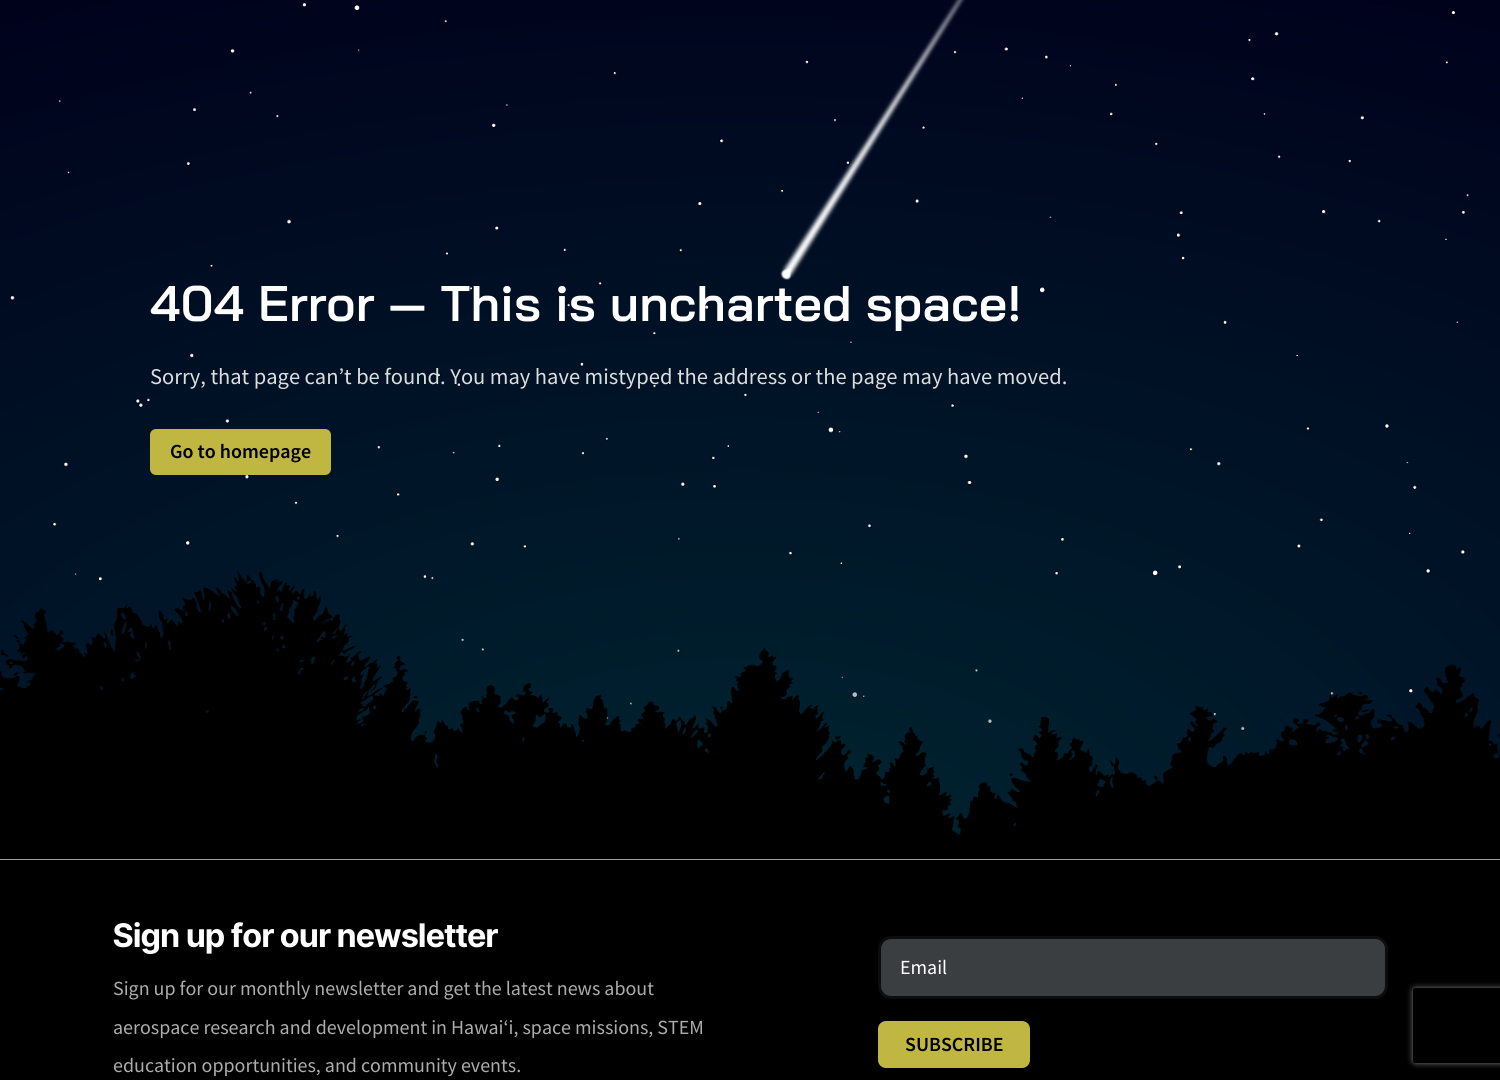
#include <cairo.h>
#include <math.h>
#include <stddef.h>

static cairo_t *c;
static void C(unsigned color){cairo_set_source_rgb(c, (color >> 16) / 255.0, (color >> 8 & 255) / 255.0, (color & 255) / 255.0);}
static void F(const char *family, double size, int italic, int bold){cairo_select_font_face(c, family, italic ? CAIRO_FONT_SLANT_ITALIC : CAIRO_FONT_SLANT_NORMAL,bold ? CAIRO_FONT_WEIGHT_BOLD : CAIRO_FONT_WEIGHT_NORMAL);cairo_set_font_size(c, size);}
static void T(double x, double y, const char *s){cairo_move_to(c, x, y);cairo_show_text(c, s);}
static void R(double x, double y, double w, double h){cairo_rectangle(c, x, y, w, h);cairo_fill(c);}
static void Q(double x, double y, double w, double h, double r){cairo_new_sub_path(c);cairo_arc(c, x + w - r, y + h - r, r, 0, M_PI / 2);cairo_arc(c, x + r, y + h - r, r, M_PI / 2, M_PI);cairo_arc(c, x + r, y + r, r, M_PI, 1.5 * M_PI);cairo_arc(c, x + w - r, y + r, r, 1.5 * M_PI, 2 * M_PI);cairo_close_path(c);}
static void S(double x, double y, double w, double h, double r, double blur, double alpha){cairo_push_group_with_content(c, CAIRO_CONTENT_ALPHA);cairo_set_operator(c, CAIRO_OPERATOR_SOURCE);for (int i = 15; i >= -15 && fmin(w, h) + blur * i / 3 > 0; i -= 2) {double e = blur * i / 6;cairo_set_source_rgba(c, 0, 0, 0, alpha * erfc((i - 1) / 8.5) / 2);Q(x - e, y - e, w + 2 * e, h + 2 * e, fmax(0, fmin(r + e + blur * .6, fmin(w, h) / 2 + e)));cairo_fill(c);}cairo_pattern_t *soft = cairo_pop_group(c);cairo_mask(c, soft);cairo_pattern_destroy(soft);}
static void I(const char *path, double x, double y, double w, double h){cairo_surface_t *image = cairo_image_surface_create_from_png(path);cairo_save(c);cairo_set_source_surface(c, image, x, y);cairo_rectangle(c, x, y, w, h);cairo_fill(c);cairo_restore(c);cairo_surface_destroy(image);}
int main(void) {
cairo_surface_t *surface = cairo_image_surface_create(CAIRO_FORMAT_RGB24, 1500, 1080);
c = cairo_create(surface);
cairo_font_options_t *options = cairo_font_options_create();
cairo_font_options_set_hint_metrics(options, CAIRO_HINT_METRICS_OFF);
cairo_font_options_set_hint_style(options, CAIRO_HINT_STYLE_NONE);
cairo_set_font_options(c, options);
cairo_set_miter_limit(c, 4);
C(0x000000);
cairo_paint(c);
C(0xa4a4a4);
R(0,859,1500,1);
I("1.png",0,0,1500,860);
F("Bai Jamjuree SemiBold",50,0,0);
C(0xffffff);
T(150,321,"404 Error — This is uncharted space!");
F("Source Sans Pro",22.5,0,0);
C(0xdddddd);
T(150,384,"Sorry, that page can’t be found. You may have mistyped the address or the page may have moved.");
C(0xbfb741);
Q(150,429,181,46,6);
cairo_fill(c);
F("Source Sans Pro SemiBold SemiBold",20,0,0);
C(0x000000);
T(170,458,"Go to homepage");
F("Inter Tight",32.5,0,1);
C(0xffffff);
T(113,947,"Sign up for our newsletter");
F("Source Sans Pro",20,0,0);
C(0xadadad);
T(113,995,"Sign up for our monthly newsletter and get the latest news about");
T(113,1034,"aerospace research and development in Hawaiʻi, space missions, STEM");
T(113,1072,"education opportunities, and community events.");
C(0x3a3e40);
Q(879.5,937.5,507,60,11.5);
cairo_fill_preserve(c);
C(0x0d0d0d);
cairo_set_line_width(c,3);
cairo_stroke(c);
C(0xffffff);
T(900,974,"Email");
C(0xbfb741);
Q(878,1021,152,47,8);
cairo_fill(c);
F("Source Sans Pro SemiBold SemiBold",20,0,0);
C(0x000000);
T(905,1051,"SUBSCRIBE");
cairo_save(c);
cairo_set_fill_rule(c,CAIRO_FILL_RULE_EVEN_ODD);
cairo_new_path(c);
cairo_move_to(c,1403,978);
cairo_line_to(c,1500,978);
cairo_line_to(c,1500,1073);
cairo_line_to(c,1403,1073);
cairo_close_path(c);
cairo_move_to(c,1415.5,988);
cairo_line_to(c,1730.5,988);
cairo_curve_to(c,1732,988,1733,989,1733,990.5);
cairo_line_to(c,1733,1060.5);
cairo_curve_to(c,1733,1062,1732,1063,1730.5,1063);
cairo_line_to(c,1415.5,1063);
cairo_curve_to(c,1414,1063,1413,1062,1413,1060.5);
cairo_line_to(c,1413,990.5);
cairo_curve_to(c,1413,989,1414,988,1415.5,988);
cairo_close_path(c);
cairo_clip(c);
C(0x808080);
S(1413,988,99,75,2.5,3,1);
cairo_restore(c);
cairo_surface_write_to_png(surface, "o.png");
cairo_font_options_destroy(options);
cairo_destroy(c);
cairo_surface_destroy(surface);
return 0;
}
